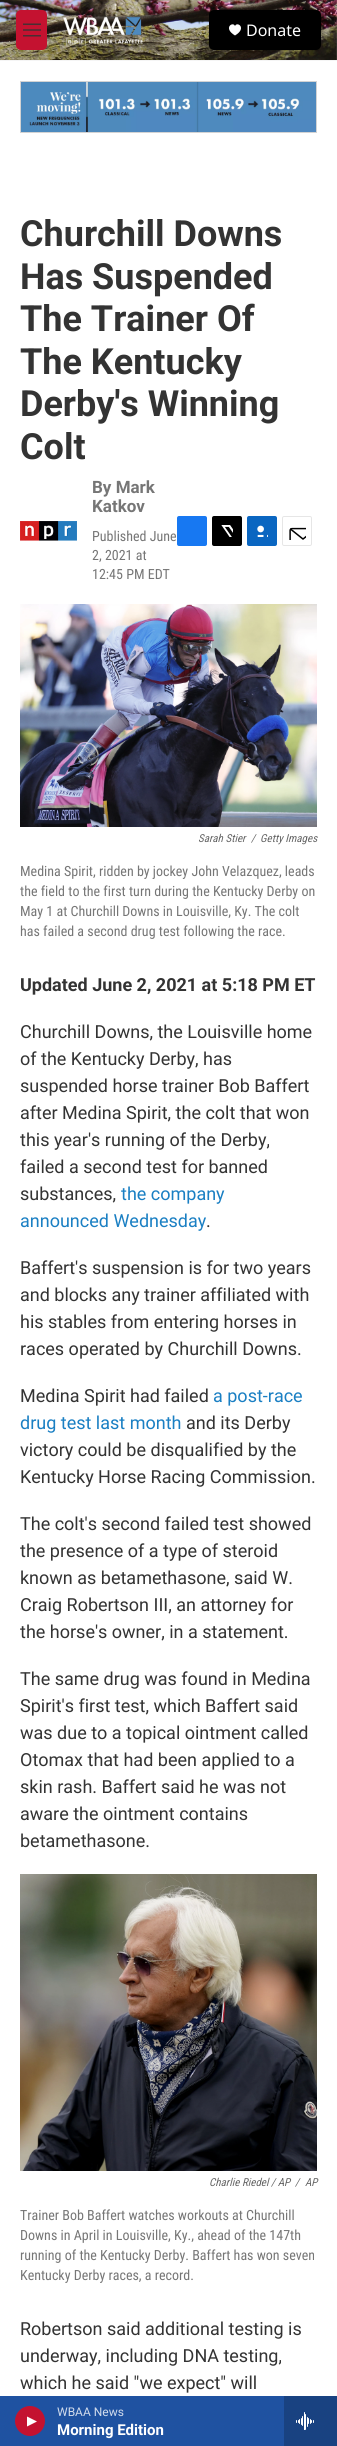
#include <cairo.h>
#include <math.h>
#include <stddef.h>

static cairo_t *c;
static void C(unsigned color){cairo_set_source_rgb(c, (color >> 16) / 255.0, (color >> 8 & 255) / 255.0, (color & 255) / 255.0);}
static void F(const char *family, double size, int italic, int bold){cairo_select_font_face(c, family, italic ? CAIRO_FONT_SLANT_ITALIC : CAIRO_FONT_SLANT_NORMAL,bold ? CAIRO_FONT_WEIGHT_BOLD : CAIRO_FONT_WEIGHT_NORMAL);cairo_set_font_size(c, size);}
static void T(double x, double y, const char *s){cairo_move_to(c, x, y);cairo_show_text(c, s);}
static void R(double x, double y, double w, double h){cairo_rectangle(c, x, y, w, h);cairo_fill(c);}
static void Q(double x, double y, double w, double h, double r){cairo_new_sub_path(c);cairo_arc(c, x + w - r, y + h - r, r, 0, M_PI / 2);cairo_arc(c, x + r, y + h - r, r, M_PI / 2, M_PI);cairo_arc(c, x + r, y + r, r, M_PI, 1.5 * M_PI);cairo_arc(c, x + w - r, y + r, r, 1.5 * M_PI, 2 * M_PI);cairo_close_path(c);}
static void I(const char *path, double x, double y, double w, double h){cairo_surface_t *image = cairo_image_surface_create_from_png(path);cairo_save(c);cairo_set_source_surface(c, image, x, y);cairo_rectangle(c, x, y, w, h);cairo_fill(c);cairo_restore(c);cairo_surface_destroy(image);}
int main(void) {
cairo_surface_t *surface = cairo_image_surface_create(CAIRO_FORMAT_RGB24, 337, 2446);
c = cairo_create(surface);
cairo_font_options_t *options = cairo_font_options_create();
cairo_font_options_set_hint_metrics(options, CAIRO_HINT_METRICS_OFF);
cairo_font_options_set_hint_style(options, CAIRO_HINT_STYLE_NONE);
cairo_set_font_options(c, options);
cairo_set_miter_limit(c, 4);
C(0xffffff);
cairo_paint(c);
C(0xf5f5f5);
R(0,60,337,1);
I("1.png",0,0,337,60);
C(0xc41230);
Q(16,10,31,40,5);
cairo_fill(c);
I("2.png",23,23,18,14);
I("3.png",63,16,80,30);
C(0x000000);
Q(209,10,112,40,5);
cairo_fill(c);
C(0xffffff);
cairo_new_path(c);
cairo_move_to(c,235,26);
cairo_curve_to(c,233,21,222.5,28,235,35.5);
cairo_curve_to(c,247.5,28,237,21,235,26);
cairo_close_path(c);
cairo_fill(c);
F("Noto Sans",16,0,0);
T(246,36,"Donate");
C(0x1f52a1);
R(0,2396,284,50);
C(0xc41230);
cairo_new_path(c);
cairo_arc(c,30,2421,15,0,2 * M_PI);
cairo_fill(c);
C(0xffffff);
cairo_new_path(c);
cairo_move_to(c,27,2416.5);
cairo_line_to(c,37,2421.5);
cairo_line_to(c,27,2426.5);
cairo_close_path(c);
cairo_fill(c);
F("Roboto",12,0,0);
C(0xd2dcec);
T(57,2416,"WBAA News");
F("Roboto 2",15,0,1);
C(0xffffff);
T(57,2435,"Morning Edition");
C(0x194281);
R(284,2396,53,50);
I("4.png",296,2412,18,18);
cairo_rectangle(c,20.5,81.5,296,51);
C(0xd3d3d3);
cairo_set_line_width(c,1);
cairo_stroke(c);
I("5.png",21,82,295,50);
F("Roboto",36,0,1);
C(0x333333);
T(20,246,"Churchill Downs");
T(20,289,"Has Suspended");
T(20,331,"The Trainer Of");
T(20,374,"The Kentucky");
T(20,416,"Derby's Winning");
T(20,459,"Colt");
I("6.png",20,521,57,20);
F("Roboto",17,0,1);
C(0x767676);
T(92,493,"By Mark");
T(92,512,"Katkov");
F("Roboto Condensed",14,0,0);
T(92,541,"Published June");
T(92,560,"2, 2021 at");
T(92,579,"12:45 PM EDT");
C(0x1778f2);
Q(177,516,30,30,2);
cairo_fill(c);
C(0x000000);
Q(212,516,30,30,2);
cairo_fill(c);
I("7.png",221,525,12,12);
C(0x0a66c1);
Q(247,516,30,30,2);
cairo_fill(c);
I("8.png",257,525,11,12);
Q(282.5,516.5,29,29,1.5);
C(0xe6e6e6);
cairo_stroke(c);
I("9.png",289,527,17,13);
I("10.png",20,604,297,223);
F("Roboto Condensed",11,1,0);
C(0x666666);
T(198,842,"Sarah Stier");
T(251,842,"/");
T(260,842,"Getty Images");
F("Roboto Condensed",14,0,0);
C(0x767676);
T(20,876,"Medina Spirit, ridden by jockey John Velazquez, leads");
T(20,896,"the field to the first turn during the Kentucky Derby on");
T(20,916,"May 1 at Churchill Downs in Louisville, Ky. The colt");
T(20,936,"has failed a second drug test following the race.");
F("Roboto 2",18,0,1);
C(0x333333);
T(20,991,"Updated June 2, 2021 at 5:18 PM ET");
F("Roboto",18,0,0);
T(20,1038,"Churchill Downs, the Louisville home");
T(20,1065,"of the Kentucky Derby, has");
T(20,1092,"suspended horse trainer Bob Baffert");
T(20,1119,"after Medina Spirit, the colt that won");
T(20,1146,"this year's running of the Derby,");
T(20,1173,"failed a second test for banned");
T(20,1200,"substances,");
C(0x1a7fc3);
T(121,1200,"the company");
T(20,1227,"announced Wednesday");
C(0x333333);
T(206,1227,".");
T(20,1274,"Baffert's suspension is for two years");
T(20,1301,"and blocks any trainer affiliated with");
T(20,1328,"his stables from entering horses in");
T(20,1355,"races operated by Churchill Downs.");
T(20,1402,"Medina Spirit had failed");
C(0x1a7fc3);
T(213,1402,"a post-race");
T(20,1429,"drug test last month");
C(0x333333);
T(186,1429,"and its Derby");
T(20,1456,"victory could be disqualified by the");
T(20,1483,"Kentucky Horse Racing Commission.");
T(20,1530,"The colt's second failed test showed");
T(20,1557,"the presence of a type of steroid");
T(20,1584,"known as betamethasone, said W.");
T(20,1611,"Craig Robertson III, an attorney for");
T(20,1638,"the horse's owner, in a statement.");
T(20,1685,"The same drug was found in Medina");
T(20,1712,"Spirit's first test, which Baffert said");
T(20,1739,"was due to a topical ointment called");
T(20,1766,"Otomax that had been applied to a");
T(20,1793,"skin rash. Baffert said he was not");
T(20,1820,"aware the ointment contains");
T(20,1847,"betamethasone.");
I("11.png",20,1874,297,297);
F("Roboto Condensed",11,1,0);
C(0x666666);
T(209,2186,"Charlie Riedel / AP");
T(295,2186,"/");
T(305,2186,"AP");
F("Roboto Condensed",14,0,0);
C(0x767676);
T(20,2220,"Trainer Bob Baffert watches workouts at Churchill");
T(20,2240,"Downs in April in Louisville, Ky., ahead of the 147th");
T(20,2260,"running of the Kentucky Derby. Baffert has won seven");
T(20,2280,"Kentucky Derby races, a record.");
F("Roboto",18,0,0);
C(0x333333);
T(20,2335,"Robertson said additional testing is");
T(20,2362,"underway, including DNA testing,");
T(20,2389,"which he said \"we expect\" will");
cairo_surface_write_to_png(surface, "o.png");
cairo_font_options_destroy(options);
cairo_destroy(c);
cairo_surface_destroy(surface);
return 0;
}
